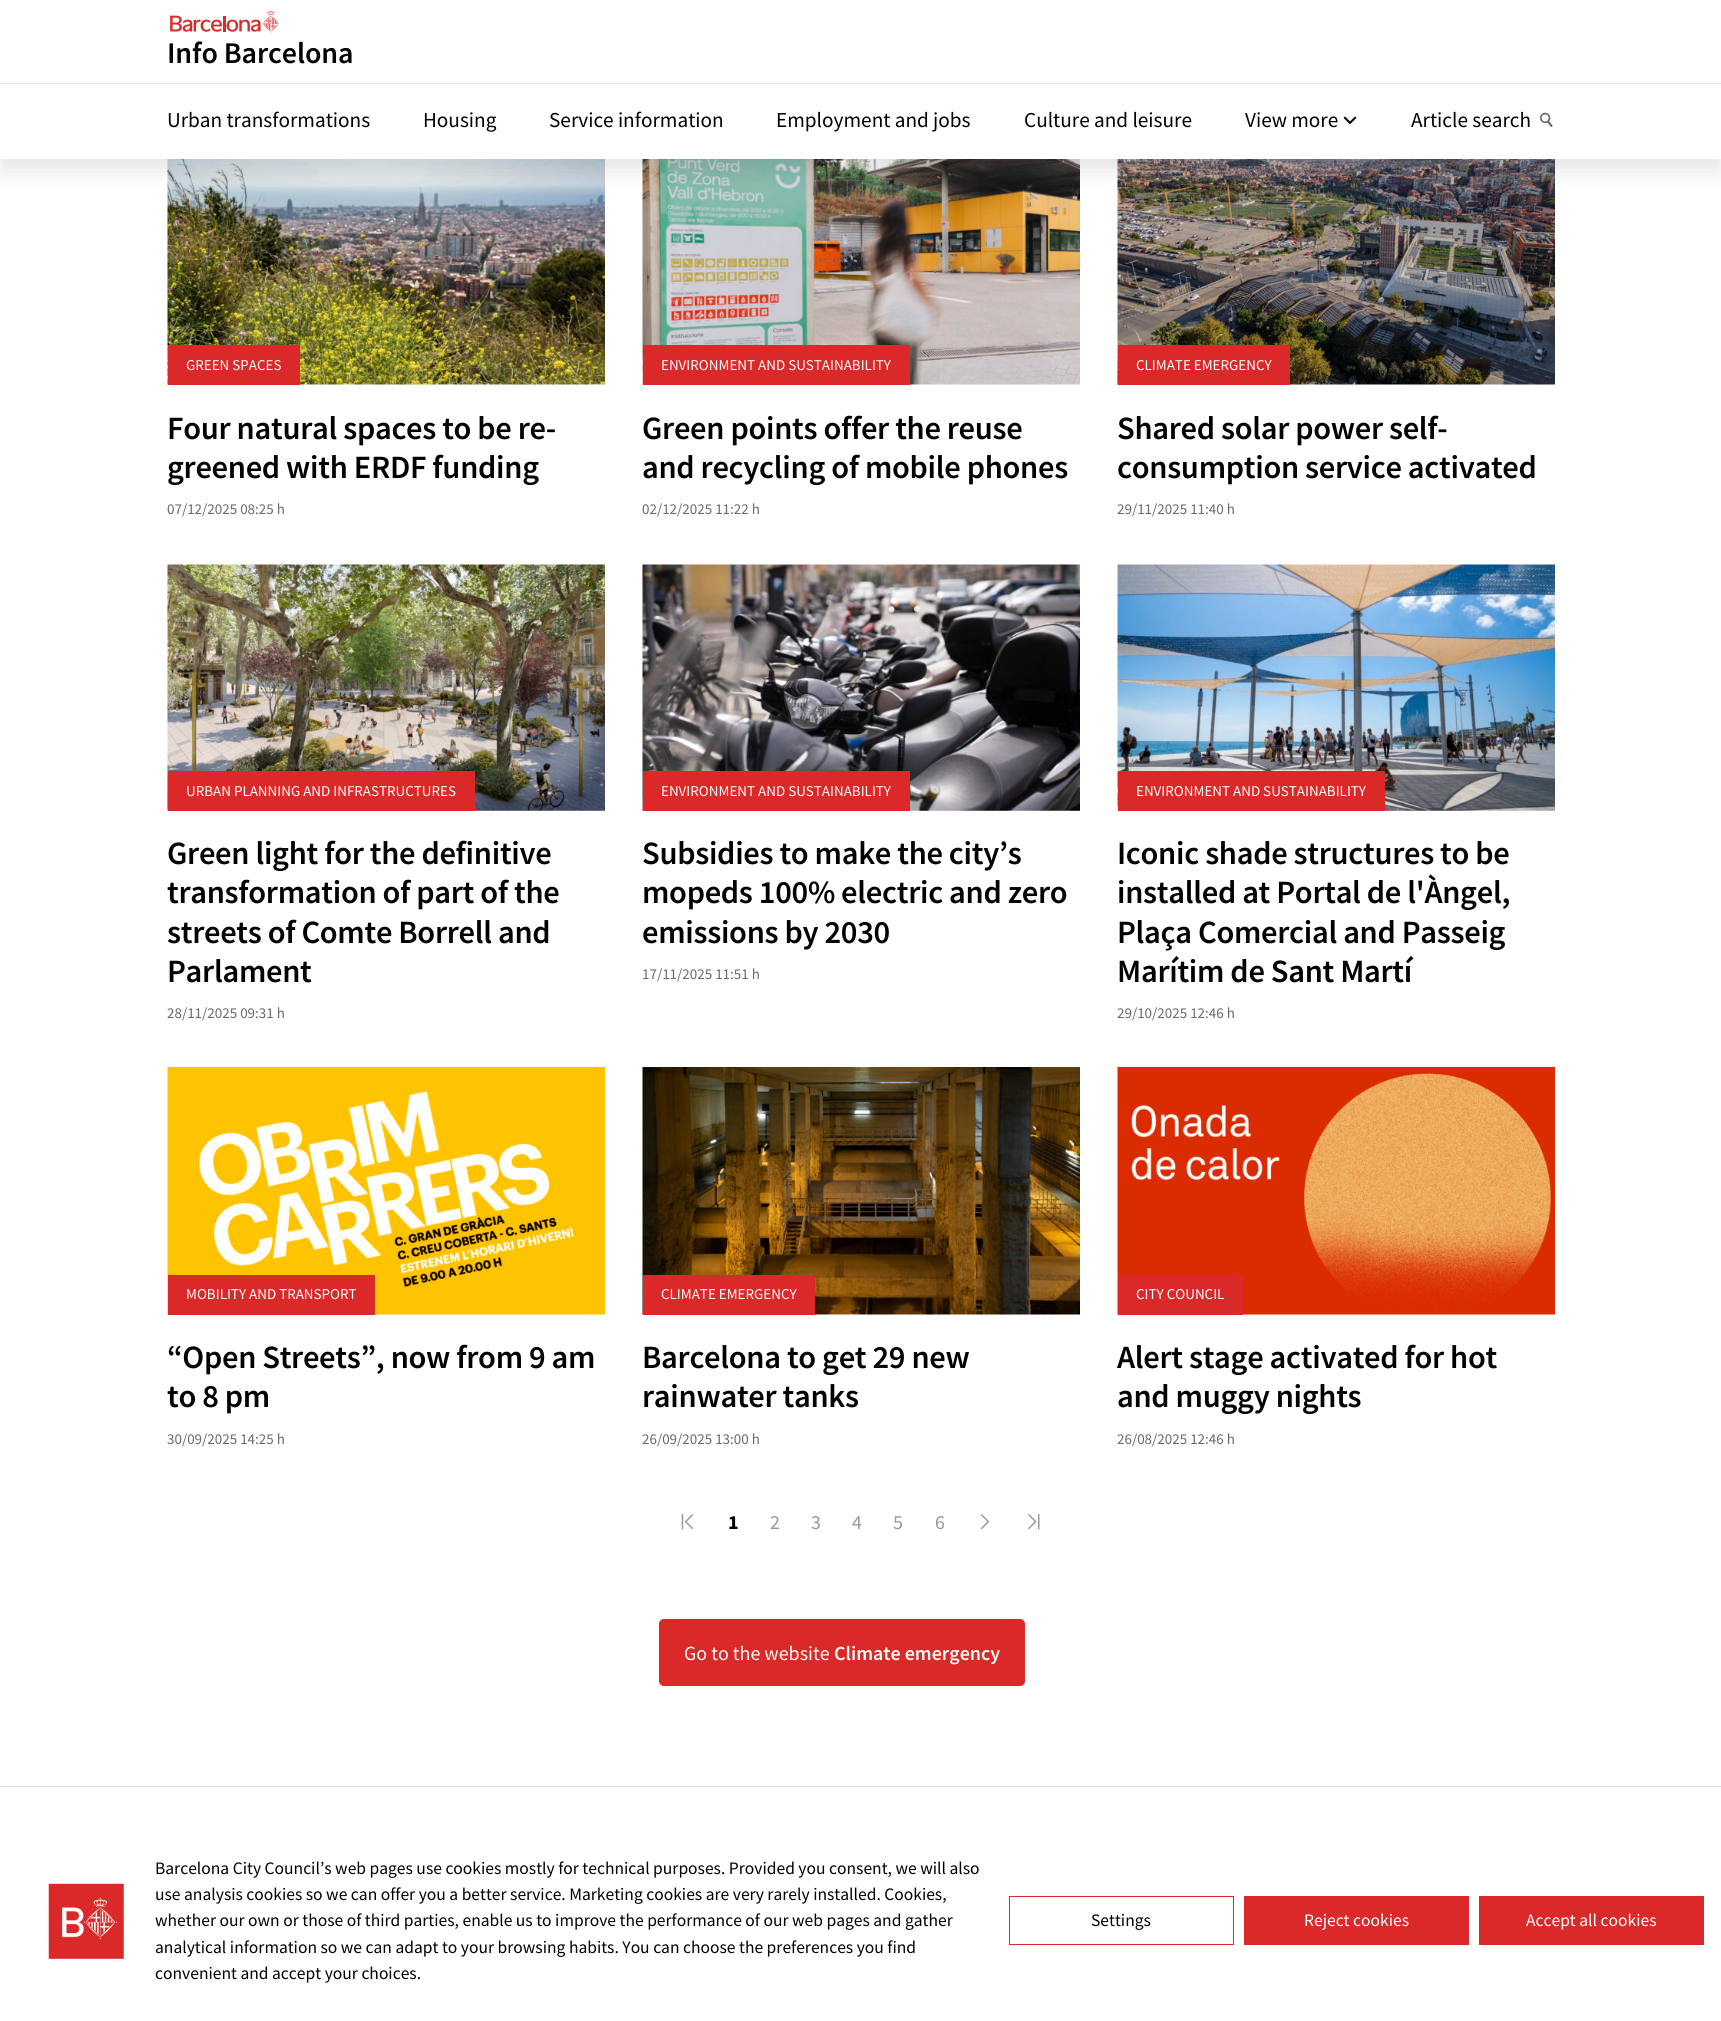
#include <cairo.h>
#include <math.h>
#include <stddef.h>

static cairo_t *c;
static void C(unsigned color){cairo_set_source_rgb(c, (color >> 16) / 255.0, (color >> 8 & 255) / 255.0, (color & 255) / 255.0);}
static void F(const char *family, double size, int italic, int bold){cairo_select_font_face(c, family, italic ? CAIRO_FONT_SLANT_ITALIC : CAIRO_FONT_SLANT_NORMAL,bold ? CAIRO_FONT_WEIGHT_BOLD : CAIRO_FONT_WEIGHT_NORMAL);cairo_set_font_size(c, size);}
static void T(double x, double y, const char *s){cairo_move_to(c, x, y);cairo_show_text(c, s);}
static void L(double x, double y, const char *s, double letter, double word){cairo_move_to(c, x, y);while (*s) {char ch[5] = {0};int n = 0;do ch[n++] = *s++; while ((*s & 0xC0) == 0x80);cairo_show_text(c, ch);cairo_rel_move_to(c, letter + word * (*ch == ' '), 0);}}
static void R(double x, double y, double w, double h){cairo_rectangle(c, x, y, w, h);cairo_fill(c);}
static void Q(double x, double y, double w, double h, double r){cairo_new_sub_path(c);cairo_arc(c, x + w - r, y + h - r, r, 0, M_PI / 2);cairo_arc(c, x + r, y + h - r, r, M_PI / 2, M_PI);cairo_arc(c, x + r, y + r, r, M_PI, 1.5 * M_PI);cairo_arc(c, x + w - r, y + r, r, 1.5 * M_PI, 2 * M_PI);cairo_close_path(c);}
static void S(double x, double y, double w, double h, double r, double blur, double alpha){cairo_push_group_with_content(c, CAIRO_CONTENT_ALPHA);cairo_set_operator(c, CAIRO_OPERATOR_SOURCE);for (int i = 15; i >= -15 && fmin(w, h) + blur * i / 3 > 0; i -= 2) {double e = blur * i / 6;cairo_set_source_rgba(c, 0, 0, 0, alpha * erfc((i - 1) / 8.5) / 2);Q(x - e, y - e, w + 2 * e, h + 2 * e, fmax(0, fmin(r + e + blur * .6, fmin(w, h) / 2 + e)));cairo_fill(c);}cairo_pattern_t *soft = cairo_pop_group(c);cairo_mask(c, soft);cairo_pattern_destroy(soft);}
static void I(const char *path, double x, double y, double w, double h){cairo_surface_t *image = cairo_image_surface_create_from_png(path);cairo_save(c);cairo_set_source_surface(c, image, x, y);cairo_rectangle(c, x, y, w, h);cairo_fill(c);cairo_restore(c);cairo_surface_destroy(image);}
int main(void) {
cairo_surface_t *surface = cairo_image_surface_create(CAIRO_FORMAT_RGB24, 1721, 2021);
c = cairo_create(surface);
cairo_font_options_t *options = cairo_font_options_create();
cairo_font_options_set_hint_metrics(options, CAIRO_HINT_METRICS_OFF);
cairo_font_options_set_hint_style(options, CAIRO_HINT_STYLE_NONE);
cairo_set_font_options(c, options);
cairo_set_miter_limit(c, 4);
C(0xffffff);
cairo_paint(c);
I("4.png",167,159,438,226);
I("5.png",642,159,438,226);
I("6.png",1117,159,438,226);
C(0x000000);
S(0,13,1721,158,0,10,.1);
C(0xffffff);
R(0,0,1721,83);
I("1.png",170,10,109,23);
F("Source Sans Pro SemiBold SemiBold",30,0,0);
C(0x000000);
L(167,63,"Info Barcelona",-.1,0);
C(0xffffff);
R(0,84,1721,75);
C(0xe5e5e5);
R(0,83,1721,1);
F("Source Sans Pro",21.25,0,0);
C(0x000000);
T(167,127,"Urban transformations");
T(423,127,"Housing");
T(549,127,"Service information");
T(776,127,"Employment and jobs");
T(1024,127,"Culture and leisure");
T(1245,127,"View more");
I("2.png",1343,116,14,9);
T(1411,127,"Article search");
I("3.png",1540,112,13,15);
C(0xdb2828);
R(168,345,132,40);
F("Source Sans Pro",15,0,0);
C(0xffffff);
T(186,370,"GREEN SPACES");
F("Source Sans Pro SemiBold SemiBold",32.5,0,0);
C(0x000000);
L(167,439,"Four natural spaces to be re-",-.3,0);
L(167,478,"greened with ERDF funding",-.3,0);
F("Source Sans Pro",15,0,0);
C(0x696973);
T(167,514,"07/12/2025 08:25 h");
C(0xdb2828);
R(643,345,267,40);
C(0xffffff);
T(661,370,"ENVIRONMENT AND SUSTAINABILITY");
F("Source Sans Pro SemiBold SemiBold",32.5,0,0);
C(0x000000);
L(642,439,"Green points offer the reuse",-.3,0);
L(642,478,"and recycling of mobile phones",-.3,0);
F("Source Sans Pro",15,0,0);
C(0x696973);
T(642,514,"02/12/2025 11:22 h");
C(0xdb2828);
R(1118,345,172,40);
C(0xffffff);
T(1136,370,"CLIMATE EMERGENCY");
F("Source Sans Pro SemiBold SemiBold",32.5,0,0);
C(0x000000);
L(1117,439,"Shared solar power self-",-.3,0);
L(1117,478,"consumption service activated",-.3,0);
F("Source Sans Pro",15,0,0);
C(0x696973);
T(1117,514,"29/11/2025 11:40 h");
I("7.png",167,564,438,247);
C(0xdb2828);
R(168,771,307,40);
C(0xffffff);
T(186,796,"URBAN PLANNING AND INFRASTRUCTURES");
F("Source Sans Pro SemiBold SemiBold",32.5,0,0);
C(0x000000);
L(167,864,"Green light for the definitive",-.3,0);
L(167,903,"transformation of part of the",-.3,0);
L(167,943,"streets of Comte Borrell and",-.3,0);
L(167,982,"Parlament",-.3,0);
F("Source Sans Pro",15,0,0);
C(0x696973);
T(167,1018,"28/11/2025 09:31 h");
I("8.png",642,564,438,247);
C(0xdb2828);
R(643,771,267,40);
C(0xffffff);
T(661,796,"ENVIRONMENT AND SUSTAINABILITY");
F("Source Sans Pro SemiBold SemiBold",32.5,0,0);
C(0x000000);
L(642,864,"Subsidies to make the city’s",-.3,0);
L(642,903,"mopeds 100% electric and zero",-.3,0);
L(642,943,"emissions by 2030",-.3,0);
F("Source Sans Pro",15,0,0);
C(0x696973);
T(642,979,"17/11/2025 11:51 h");
I("9.png",1117,564,438,247);
C(0xdb2828);
R(1118,771,267,40);
C(0xffffff);
T(1136,796,"ENVIRONMENT AND SUSTAINABILITY");
F("Source Sans Pro SemiBold SemiBold",32.5,0,0);
C(0x000000);
L(1117,864,"Iconic shade structures to be",-.3,0);
L(1117,903,"installed at Portal de l'Àngel,",-.3,0);
L(1117,943,"Plaça Comercial and Passeig",-.3,0);
L(1117,982,"Marítim de Sant Martí",-.3,0);
F("Source Sans Pro",15,0,0);
C(0x696973);
T(1117,1018,"29/10/2025 12:46 h");
I("10.png",167,1067,438,248);
C(0xdb2828);
R(168,1275,207,40);
C(0xffffff);
T(186,1299,"MOBILITY AND TRANSPORT");
F("Source Sans Pro SemiBold SemiBold",32.5,0,0);
C(0x000000);
L(167,1368,"“Open Streets”, now from 9 am",-.3,0);
L(167,1407,"to 8 pm",-.3,0);
F("Source Sans Pro",15,0,0);
C(0x696973);
T(167,1444,"30/09/2025 14:25 h");
I("11.png",642,1067,438,248);
C(0xdb2828);
R(643,1275,172,40);
C(0xffffff);
T(661,1299,"CLIMATE EMERGENCY");
F("Source Sans Pro SemiBold SemiBold",32.5,0,0);
C(0x000000);
L(642,1368,"Barcelona to get 29 new",-.3,0);
L(642,1407,"rainwater tanks",-.3,0);
F("Source Sans Pro",15,0,0);
C(0x696973);
T(642,1444,"26/09/2025 13:00 h");
I("12.png",1117,1067,438,248);
C(0xdb2828);
R(1118,1275,125,40);
C(0xffffff);
T(1136,1299,"CITY COUNCIL");
F("Source Sans Pro SemiBold SemiBold",32.5,0,0);
C(0x000000);
L(1117,1368,"Alert stage activated for hot",-.3,0);
L(1117,1407,"and muggy nights",-.3,0);
F("Source Sans Pro",15,0,0);
C(0x696973);
T(1117,1444,"26/08/2025 12:46 h");
I("13.png",681,1514,13,16);
F("Source Sans Pro",20,0,1);
C(0x000000);
T(728,1529,"1");
F("Source Sans Pro",20,0,0);
C(0x999999);
T(770,1529,"2");
T(811,1529,"3");
T(852,1529,"4");
T(893,1529,"5");
T(935,1529,"6");
I("14.png",980,1514,10,16);
I("15.png",1028,1514,12,16);
C(0xdb2828);
Q(659,1619,366,67,5);
cairo_fill(c);
C(0xffffff);
T(684,1660,"Go to the website");
F("Source Sans Pro SemiBold SemiBold",20,0,0);
T(834,1660,"Climate emergency");
C(0xe5e5e5);
R(0,1786,1721,1);
I("16.png",48,1883,76,76);
F("Source Sans Pro",17.5,0,0);
C(0x000000);
T(155,1874,"Barcelona City Council’s web pages use cookies mostly for technical purposes. Provided you consent, we will also");
T(155,1900,"use analysis cookies so we can offer you a better service. Marketing cookies are very rarely installed. Cookies,");
T(155,1926,"whether our own or those of third parties, enable us to improve the performance of our web pages and gather");
T(155,1953,"analytical information so we can adapt to your browsing habits. You can choose the preferences you find");
T(155,1979,"convenient and accept your choices.");
cairo_rectangle(c,1009.5,1896.5,224,48);
C(0xdb2828);
cairo_set_line_width(c,1);
cairo_stroke(c);
C(0x000000);
T(1091,1926,"Settings");
C(0xdb2828);
R(1244,1896,225,49);
C(0xffffff);
T(1304,1926,"Reject cookies");
C(0xdb2828);
R(1479,1896,225,49);
C(0xffffff);
T(1526,1926,"Accept all cookies");
cairo_surface_write_to_png(surface, "o.png");
cairo_font_options_destroy(options);
cairo_destroy(c);
cairo_surface_destroy(surface);
return 0;
}
